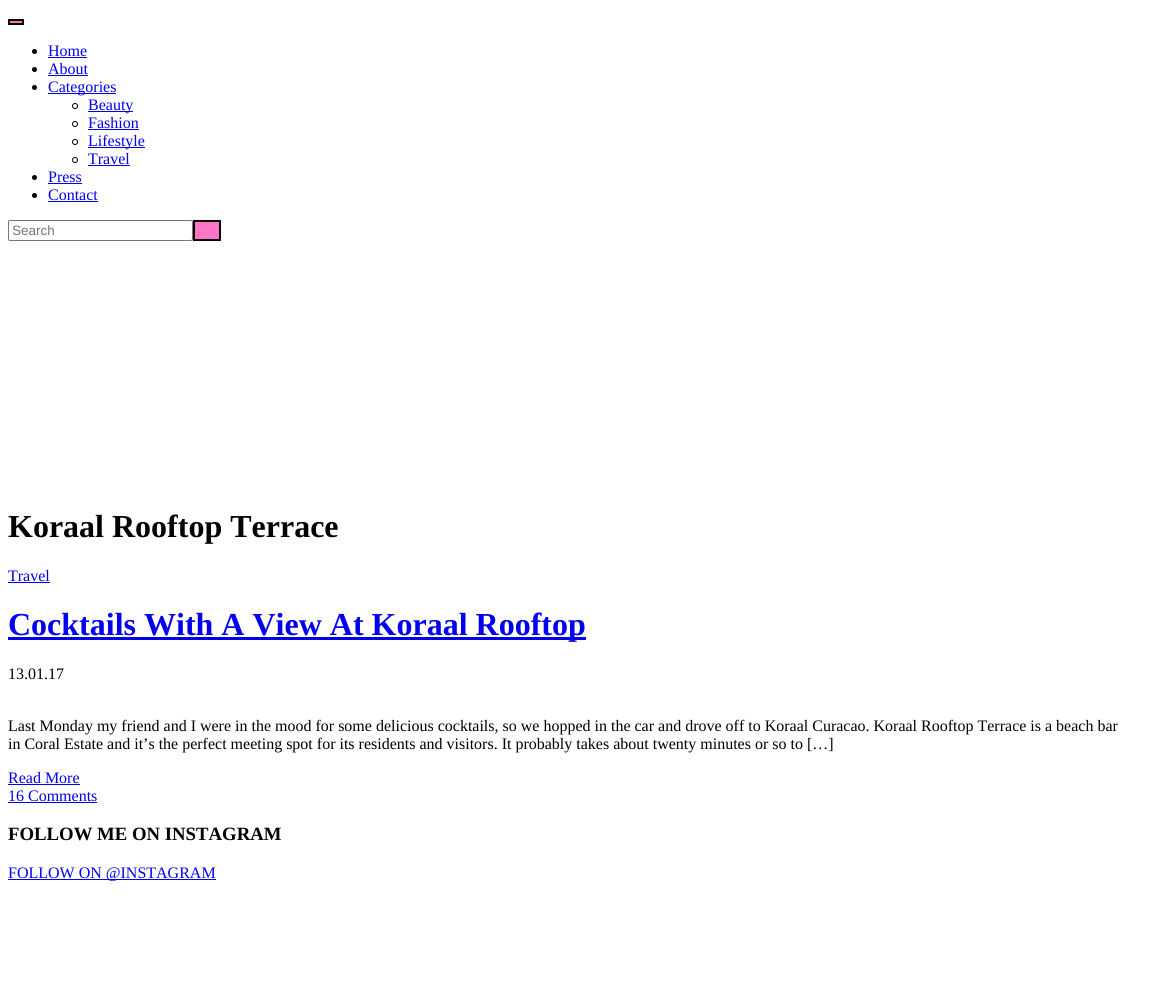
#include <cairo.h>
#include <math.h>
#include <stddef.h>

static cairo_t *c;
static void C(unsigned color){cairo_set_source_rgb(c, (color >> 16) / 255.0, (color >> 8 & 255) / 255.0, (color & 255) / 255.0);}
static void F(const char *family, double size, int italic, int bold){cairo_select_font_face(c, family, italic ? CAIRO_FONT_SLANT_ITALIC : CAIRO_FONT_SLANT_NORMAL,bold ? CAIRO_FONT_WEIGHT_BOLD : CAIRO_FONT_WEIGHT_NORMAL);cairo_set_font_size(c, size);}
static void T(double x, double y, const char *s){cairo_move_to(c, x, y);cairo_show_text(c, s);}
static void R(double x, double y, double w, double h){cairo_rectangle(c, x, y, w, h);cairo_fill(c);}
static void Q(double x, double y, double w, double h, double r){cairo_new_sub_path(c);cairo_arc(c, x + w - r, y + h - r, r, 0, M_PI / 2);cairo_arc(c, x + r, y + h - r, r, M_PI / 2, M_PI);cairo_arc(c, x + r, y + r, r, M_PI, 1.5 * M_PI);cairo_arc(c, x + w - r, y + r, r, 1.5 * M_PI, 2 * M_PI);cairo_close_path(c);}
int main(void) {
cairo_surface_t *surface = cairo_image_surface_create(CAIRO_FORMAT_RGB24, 1152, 987);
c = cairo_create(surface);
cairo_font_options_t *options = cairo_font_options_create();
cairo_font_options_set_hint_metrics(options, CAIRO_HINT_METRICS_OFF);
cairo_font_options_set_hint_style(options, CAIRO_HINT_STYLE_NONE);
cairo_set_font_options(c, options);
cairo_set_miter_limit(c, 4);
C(0xffffff);
cairo_paint(c);
C(0xff75c7);
cairo_rectangle(c,9,20,14,4);
cairo_fill_preserve(c);
C(0x000000);
cairo_stroke(c);
cairo_arc(c,34.5,51.5,2.5,0,2 * M_PI);
cairo_fill(c);
F("Liberation Serif",16,0,0);
C(0x0000ee);
T(48,56,"Home");
R(48,57,39,1);
C(0x000000);
cairo_new_path(c);
cairo_arc(c,34.5,69.5,2.5,0,2 * M_PI);
cairo_fill(c);
C(0x0000ee);
T(48,74,"About");
R(48,75,40,1);
C(0x000000);
cairo_new_path(c);
cairo_arc(c,34.5,87.5,2.5,0,2 * M_PI);
cairo_fill(c);
C(0x0000ee);
R(48,93,68,1);
T(48,92,"Categories");
cairo_new_path(c);
cairo_arc(c,75,106,2.5,0,2 * M_PI);
C(0x000000);
cairo_set_line_width(c,1);
cairo_stroke(c);
C(0x0000ee);
R(88,111,45,1);
T(88,110,"Beauty");
cairo_new_path(c);
cairo_arc(c,75,124,2.5,0,2 * M_PI);
C(0x000000);
cairo_stroke(c);
C(0x0000ee);
T(88,128,"Fashion");
R(88,129,51,1);
cairo_new_path(c);
cairo_arc(c,75,142,2.5,0,2 * M_PI);
C(0x000000);
cairo_stroke(c);
C(0x0000ee);
R(88,147,57,1);
T(88,146,"Lifestyle");
cairo_new_path(c);
cairo_arc(c,75,160,2.5,0,2 * M_PI);
C(0x000000);
cairo_stroke(c);
C(0x0000ee);
T(88,164,"Travel");
R(88,165,42,1);
C(0x000000);
cairo_new_path(c);
cairo_arc(c,34.5,177.5,2.5,0,2 * M_PI);
cairo_fill(c);
C(0x0000ee);
T(48,182,"Press");
R(48,183,34,1);
C(0x000000);
cairo_new_path(c);
cairo_arc(c,34.5,195.5,2.5,0,2 * M_PI);
cairo_fill(c);
C(0x0000ee);
T(48,200,"Contact");
R(48,201,50,1);
Q(8.5,220.5,184,20,1.5);
C(0x767676);
cairo_stroke(c);
F("Liberation Sans",13.5,0,0);
C(0x757575);
T(12,235,"Search");
C(0xff75c7);
cairo_rectangle(c,194,221,26,19);
cairo_fill_preserve(c);
C(0x000000);
cairo_set_line_width(c,2);
cairo_stroke(c);
F("Liberation Serif",32,0,1);
T(8,537,"Koraal Rooftop Terrace");
F("Liberation Serif",16,0,0);
C(0x0000ee);
T(8,581,"Travel");
R(8,582,42,1);
R(8,637,578,3);
F("Liberation Serif",32,0,1);
T(8,635,"Cocktails With A View At Koraal Rooftop");
F("Liberation Serif",16,0,0);
C(0x000000);
T(8,679,"13.01.17");
T(8,731,"Last Monday my friend and I were in the mood for some delicious cocktails, so we hopped in the car and drove off to Koraal Curacao. Koraal Rooftop Terrace is a beach bar");
T(8,749,"in Coral Estate and it’s the perfect meeting spot for its residents and visitors. It probably takes about twenty minutes or so to […]");
C(0x0000ee);
T(8,783,"Read More");
R(8,784,72,1);
T(8,801,"16 Comments");
R(8,802,89,1);
F("Liberation Serif",18.75,0,1);
C(0x000000);
T(8,840,"FOLLOW ME ON INSTAGRAM");
C(0x0000ee);
R(8,879,208,1);
F("Liberation Serif",16,0,0);
T(8,878,"FOLLOW ON @INSTAGRAM");
cairo_surface_write_to_png(surface, "o.png");
cairo_font_options_destroy(options);
cairo_destroy(c);
cairo_surface_destroy(surface);
return 0;
}
